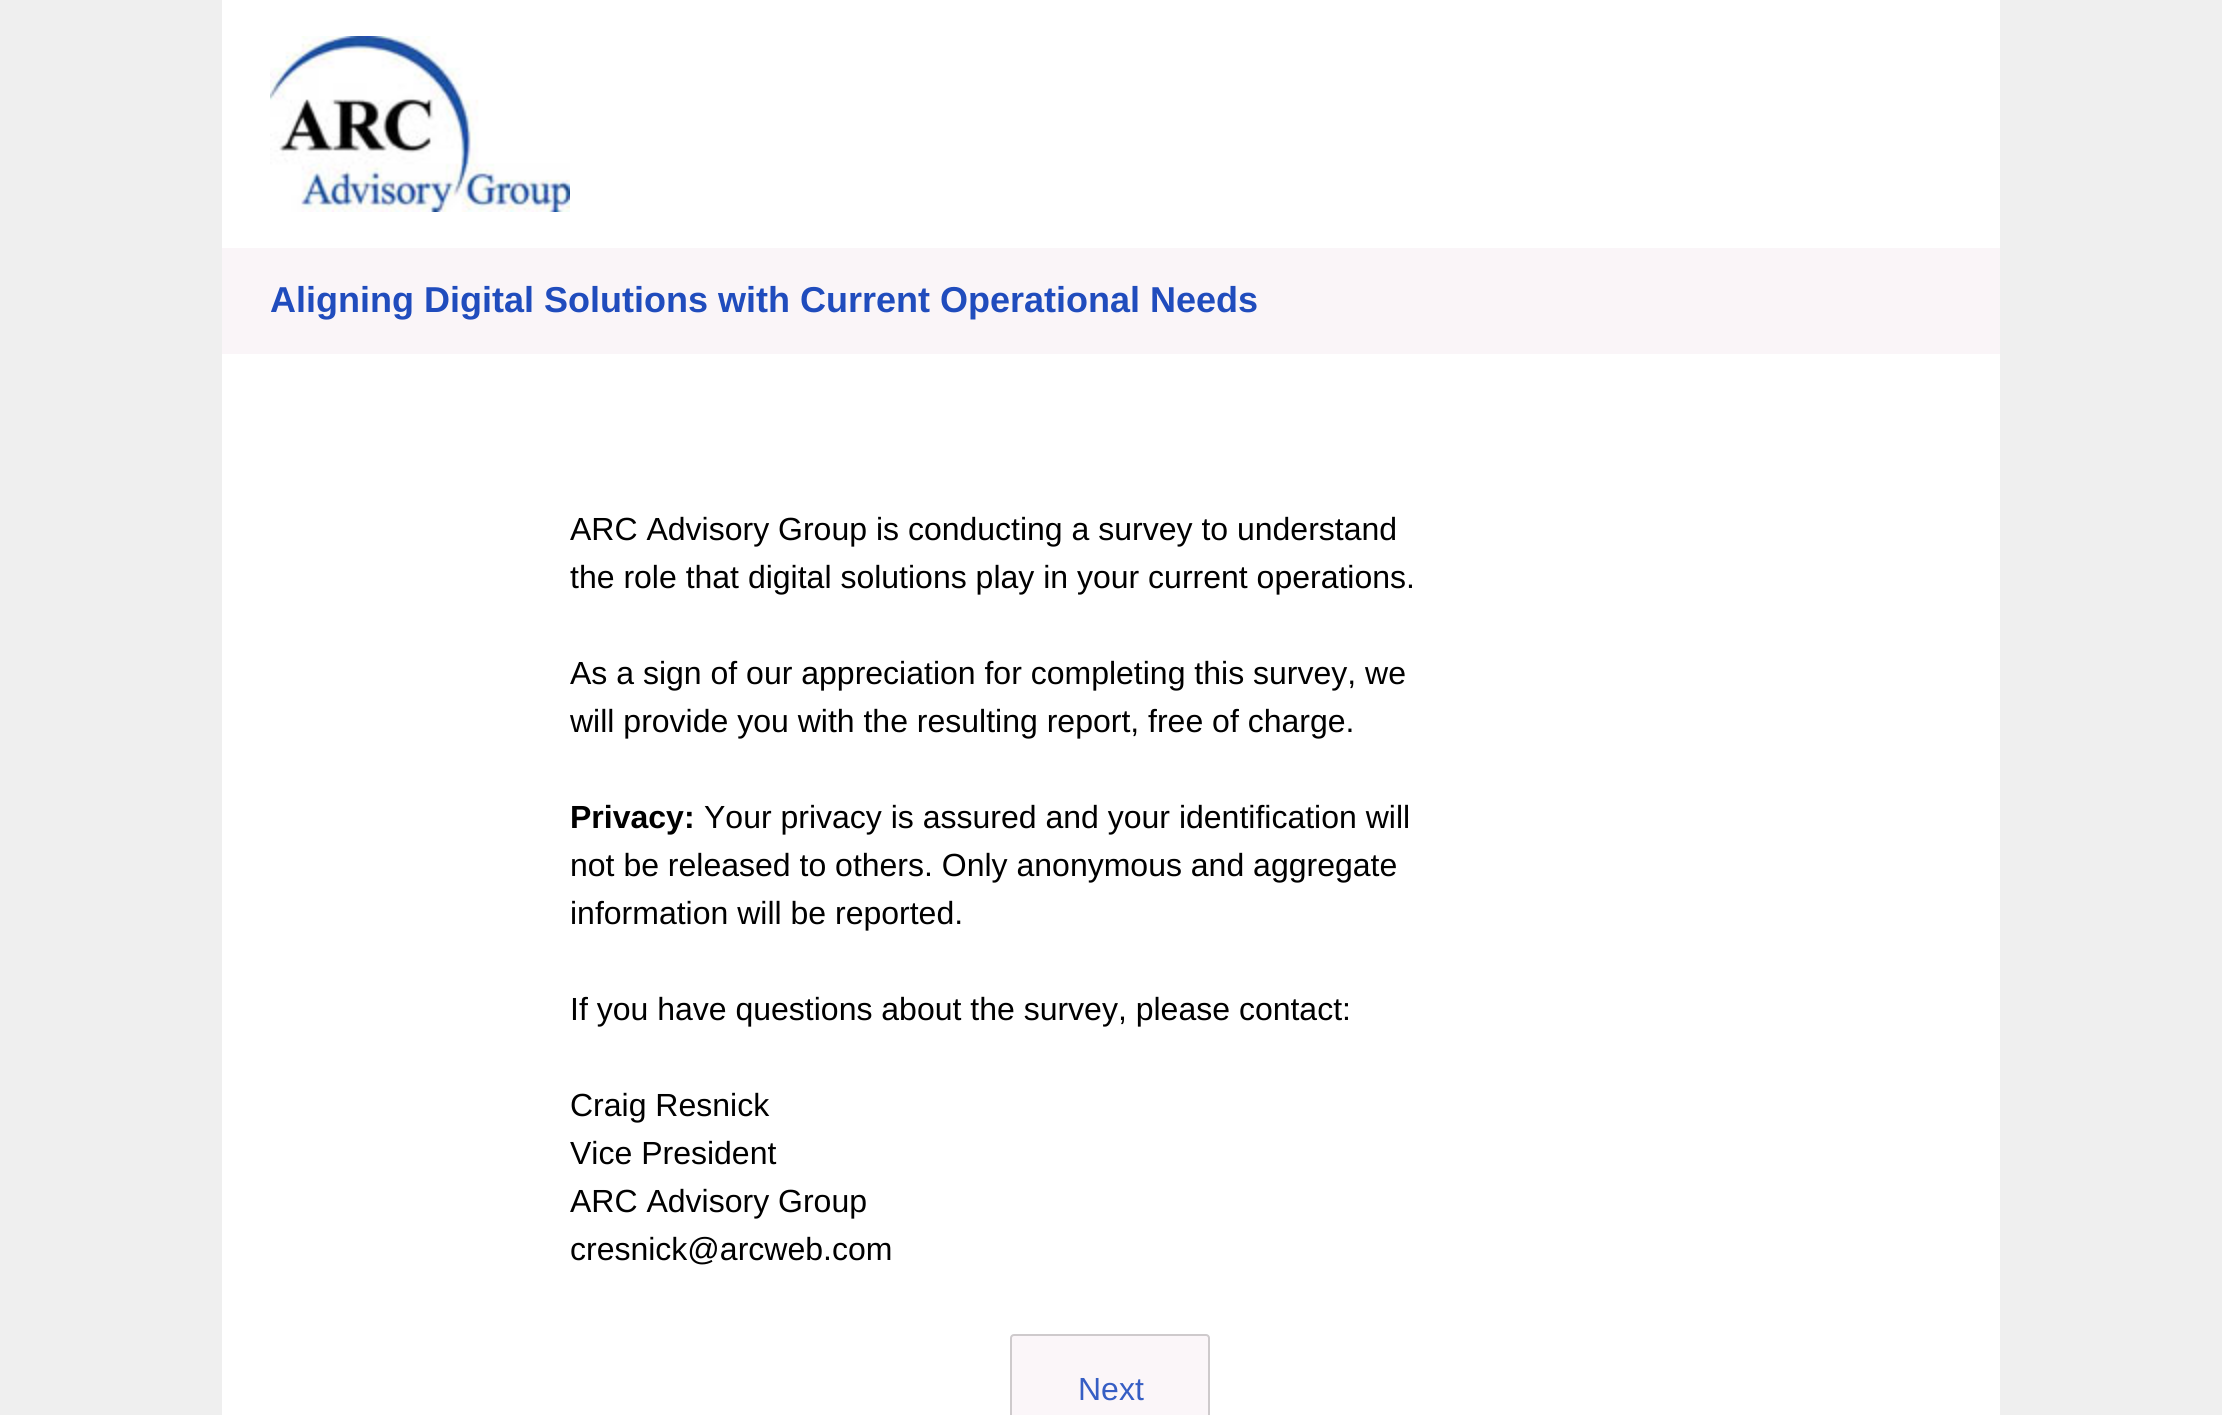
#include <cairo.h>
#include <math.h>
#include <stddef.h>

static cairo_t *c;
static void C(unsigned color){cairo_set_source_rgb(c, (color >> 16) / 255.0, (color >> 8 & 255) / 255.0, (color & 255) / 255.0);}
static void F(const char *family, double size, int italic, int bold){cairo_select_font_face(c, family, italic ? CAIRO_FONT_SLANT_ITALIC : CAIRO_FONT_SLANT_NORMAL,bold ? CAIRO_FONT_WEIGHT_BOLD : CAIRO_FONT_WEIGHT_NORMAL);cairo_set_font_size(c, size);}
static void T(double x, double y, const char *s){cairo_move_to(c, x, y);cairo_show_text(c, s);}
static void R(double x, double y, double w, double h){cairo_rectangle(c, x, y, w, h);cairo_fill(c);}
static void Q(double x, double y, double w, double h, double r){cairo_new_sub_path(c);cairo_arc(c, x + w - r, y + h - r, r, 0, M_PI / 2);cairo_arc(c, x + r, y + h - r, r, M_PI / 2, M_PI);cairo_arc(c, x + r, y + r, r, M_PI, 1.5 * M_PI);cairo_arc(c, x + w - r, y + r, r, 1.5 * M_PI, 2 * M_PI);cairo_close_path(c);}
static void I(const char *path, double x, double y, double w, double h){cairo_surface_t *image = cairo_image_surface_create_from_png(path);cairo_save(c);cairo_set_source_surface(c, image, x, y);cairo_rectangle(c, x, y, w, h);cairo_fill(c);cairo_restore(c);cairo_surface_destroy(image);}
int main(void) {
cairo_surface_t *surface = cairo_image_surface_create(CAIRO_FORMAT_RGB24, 2222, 1415);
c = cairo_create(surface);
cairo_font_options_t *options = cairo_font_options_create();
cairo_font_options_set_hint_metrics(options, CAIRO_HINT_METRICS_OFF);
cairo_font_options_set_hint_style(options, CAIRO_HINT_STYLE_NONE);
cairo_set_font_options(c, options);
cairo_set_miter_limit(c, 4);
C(0xefefef);
cairo_paint(c);
C(0xffffff);
R(222,0,1778,1415);
I("1.png",270,36,300,176);
C(0xfaf5f8);
R(222,248,1778,106);
F("Liberation Sans",36,0,1);
C(0x204cbd);
T(270,312,"Aligning Digital Solutions with Current Operational Needs");
F("Liberation Sans",32,0,0);
C(0x000000);
T(570,540,"ARC Advisory Group is conducting a survey to understand");
T(570,588,"the role that digital solutions play in your current operations.");
T(570,684,"As a sign of our appreciation for completing this survey, we");
T(570,732,"will provide you with the resulting report, free of charge.");
F("Liberation Sans",32,0,1);
T(570,828,"Privacy:");
F("Liberation Sans",32,0,0);
T(704,828,"Your privacy is assured and your identification will");
T(570,876,"not be released to others. Only anonymous and aggregate");
T(570,924,"information will be reported.");
T(570,1020,"If you have questions about the survey, please contact:");
T(570,1116,"Craig Resnick");
T(570,1164,"Vice President");
T(570,1212,"ARC Advisory Group");
T(570,1260,"cresnick@arcweb.com");
C(0xfbf6f9);
Q(1010,1334,200,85,4);
cairo_fill(c);
Q(1011,1335,198,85,3);
cairo_set_source_rgba(c,0.102,0.102,0.102,0.2);
cairo_stroke(c);
C(0x365ec4);
T(1078,1400,"Next");
cairo_surface_write_to_png(surface, "o.png");
cairo_font_options_destroy(options);
cairo_destroy(c);
cairo_surface_destroy(surface);
return 0;
}
